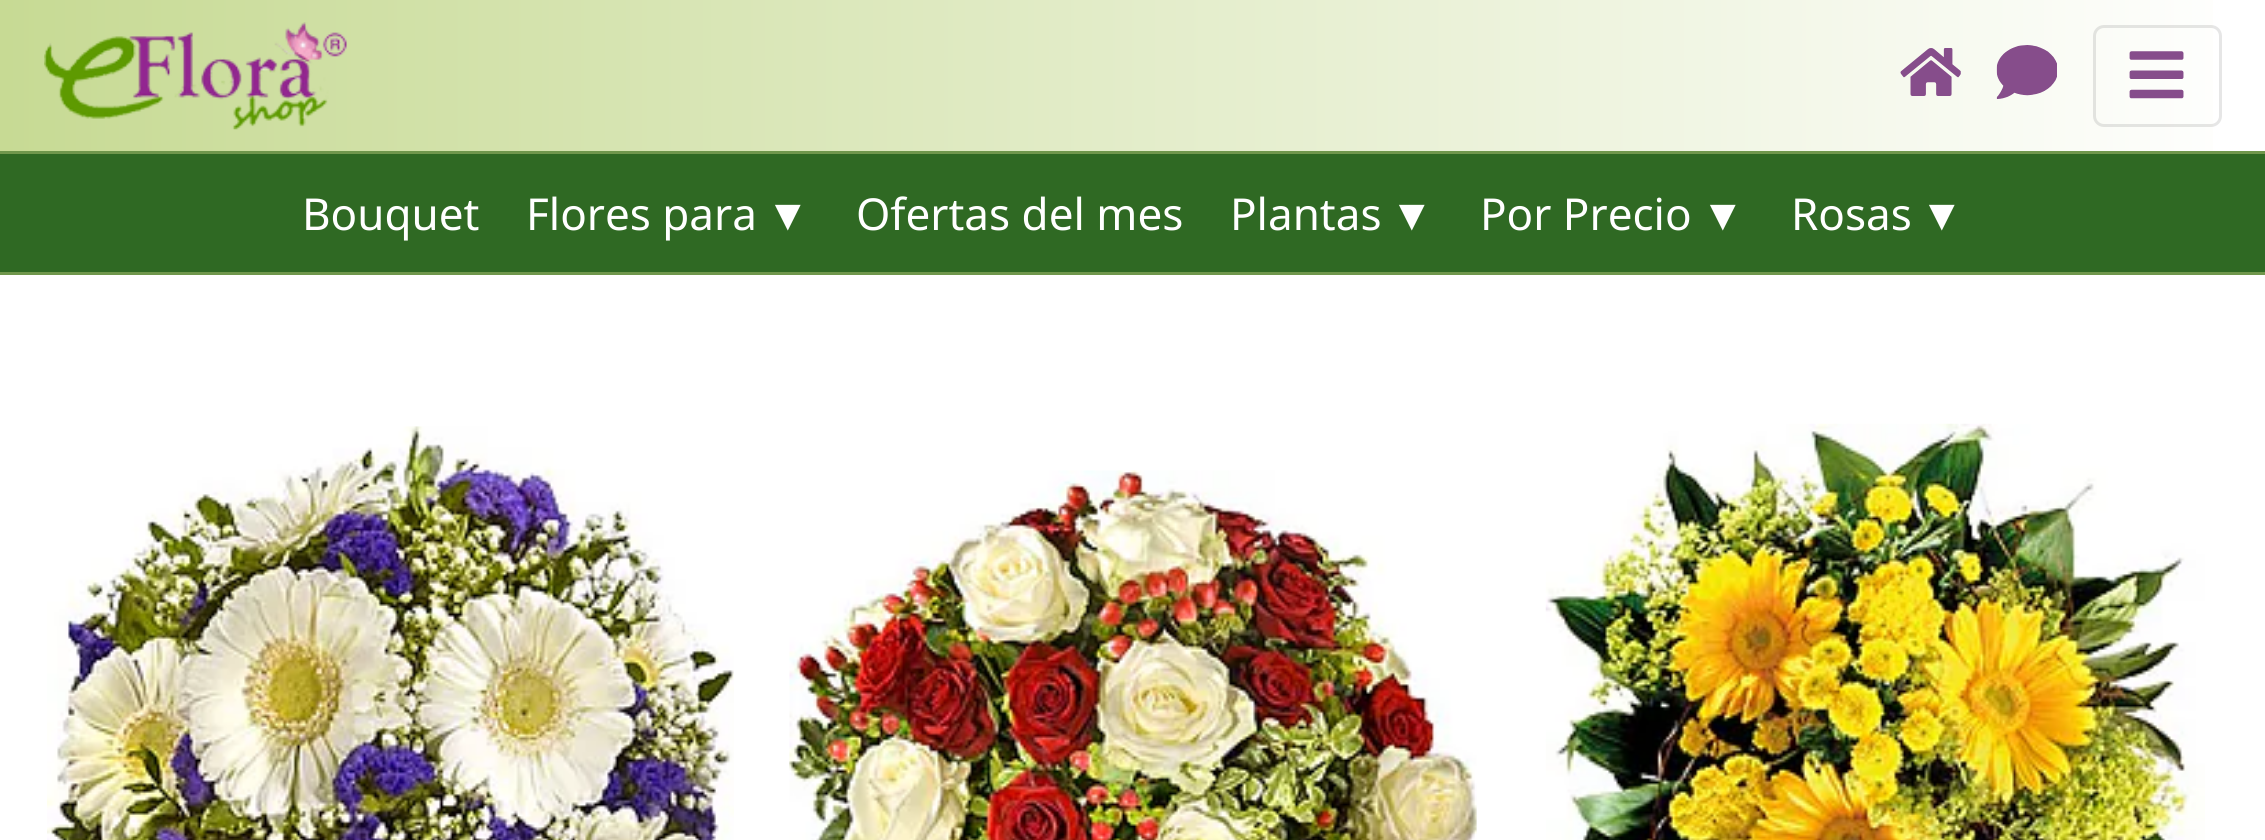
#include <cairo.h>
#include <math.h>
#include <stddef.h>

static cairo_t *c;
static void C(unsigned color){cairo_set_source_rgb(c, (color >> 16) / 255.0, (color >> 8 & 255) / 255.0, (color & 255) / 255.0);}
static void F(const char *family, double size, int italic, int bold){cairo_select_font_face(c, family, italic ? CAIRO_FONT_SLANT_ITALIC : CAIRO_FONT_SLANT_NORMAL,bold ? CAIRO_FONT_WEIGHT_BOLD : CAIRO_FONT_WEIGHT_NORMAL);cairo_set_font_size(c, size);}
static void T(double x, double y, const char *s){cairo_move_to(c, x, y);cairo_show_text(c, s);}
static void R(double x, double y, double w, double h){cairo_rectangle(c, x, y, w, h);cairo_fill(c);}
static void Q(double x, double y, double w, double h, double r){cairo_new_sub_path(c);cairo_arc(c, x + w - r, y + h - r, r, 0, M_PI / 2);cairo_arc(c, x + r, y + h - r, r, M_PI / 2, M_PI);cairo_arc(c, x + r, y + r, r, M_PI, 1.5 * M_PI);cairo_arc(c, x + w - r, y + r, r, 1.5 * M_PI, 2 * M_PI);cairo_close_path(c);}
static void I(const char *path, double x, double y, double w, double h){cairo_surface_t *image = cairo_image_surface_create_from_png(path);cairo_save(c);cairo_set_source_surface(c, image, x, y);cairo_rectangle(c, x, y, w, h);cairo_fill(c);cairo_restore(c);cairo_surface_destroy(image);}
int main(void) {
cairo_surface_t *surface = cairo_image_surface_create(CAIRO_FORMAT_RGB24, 2265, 840);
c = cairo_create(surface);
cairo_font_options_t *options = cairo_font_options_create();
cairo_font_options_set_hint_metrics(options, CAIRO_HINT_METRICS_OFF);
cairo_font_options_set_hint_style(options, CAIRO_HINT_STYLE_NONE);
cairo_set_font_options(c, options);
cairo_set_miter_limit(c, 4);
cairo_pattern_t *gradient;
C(0xffffff);
cairo_paint(c);
gradient = cairo_pattern_create_linear(0,76,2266,76);
cairo_pattern_add_color_stop_rgba(gradient,0,0.78,0.855,0.58,1);
cairo_pattern_add_color_stop_rgba(gradient,1,1,1,1,1);
cairo_set_source(c,gradient);
cairo_pattern_destroy(gradient);
R(0,0,2213,151);
I("1.png",44,22,303,108);
I("2.png",1900,48,61,48);
I("3.png",1996,45,61,54);
Q(2094.5,26.5,126,99,9.5);
cairo_set_source_rgba(c,0,0,0,0.1);
cairo_set_line_width(c,3);
cairo_stroke(c);
I("4.png",2129,51,55,48);
C(0x2f6923);
R(0,154,2265,118);
C(0x70974c);
R(0,151,2265,3);
R(0,272,2265,3);
F("Noto Sans",44,0,0);
C(0xffffff);
T(302,230,"Bouquet");
T(526,230,"Flores para");
F("Liberation Sans",44,0,0);
T(766,230,"▼");
F("Noto Sans",44,0,0);
T(856,230,"Ofertas del mes");
T(1230,230,"Plantas");
F("Liberation Sans",44,0,0);
T(1390,230,"▼");
F("Noto Sans",44,0,0);
T(1480,230,"Por Precio");
F("Liberation Sans",44,0,0);
T(1701,230,"▼");
F("Noto Sans",44,0,0);
T(1791,230,"Rosas");
F("Liberation Sans",44,0,0);
T(1920,230,"▼");
I("5.png",47,426,687,414);
I("6.png",789,470,688,370);
I("7.png",1545,423,660,417);
cairo_surface_write_to_png(surface, "o.png");
cairo_font_options_destroy(options);
cairo_destroy(c);
cairo_surface_destroy(surface);
return 0;
}
